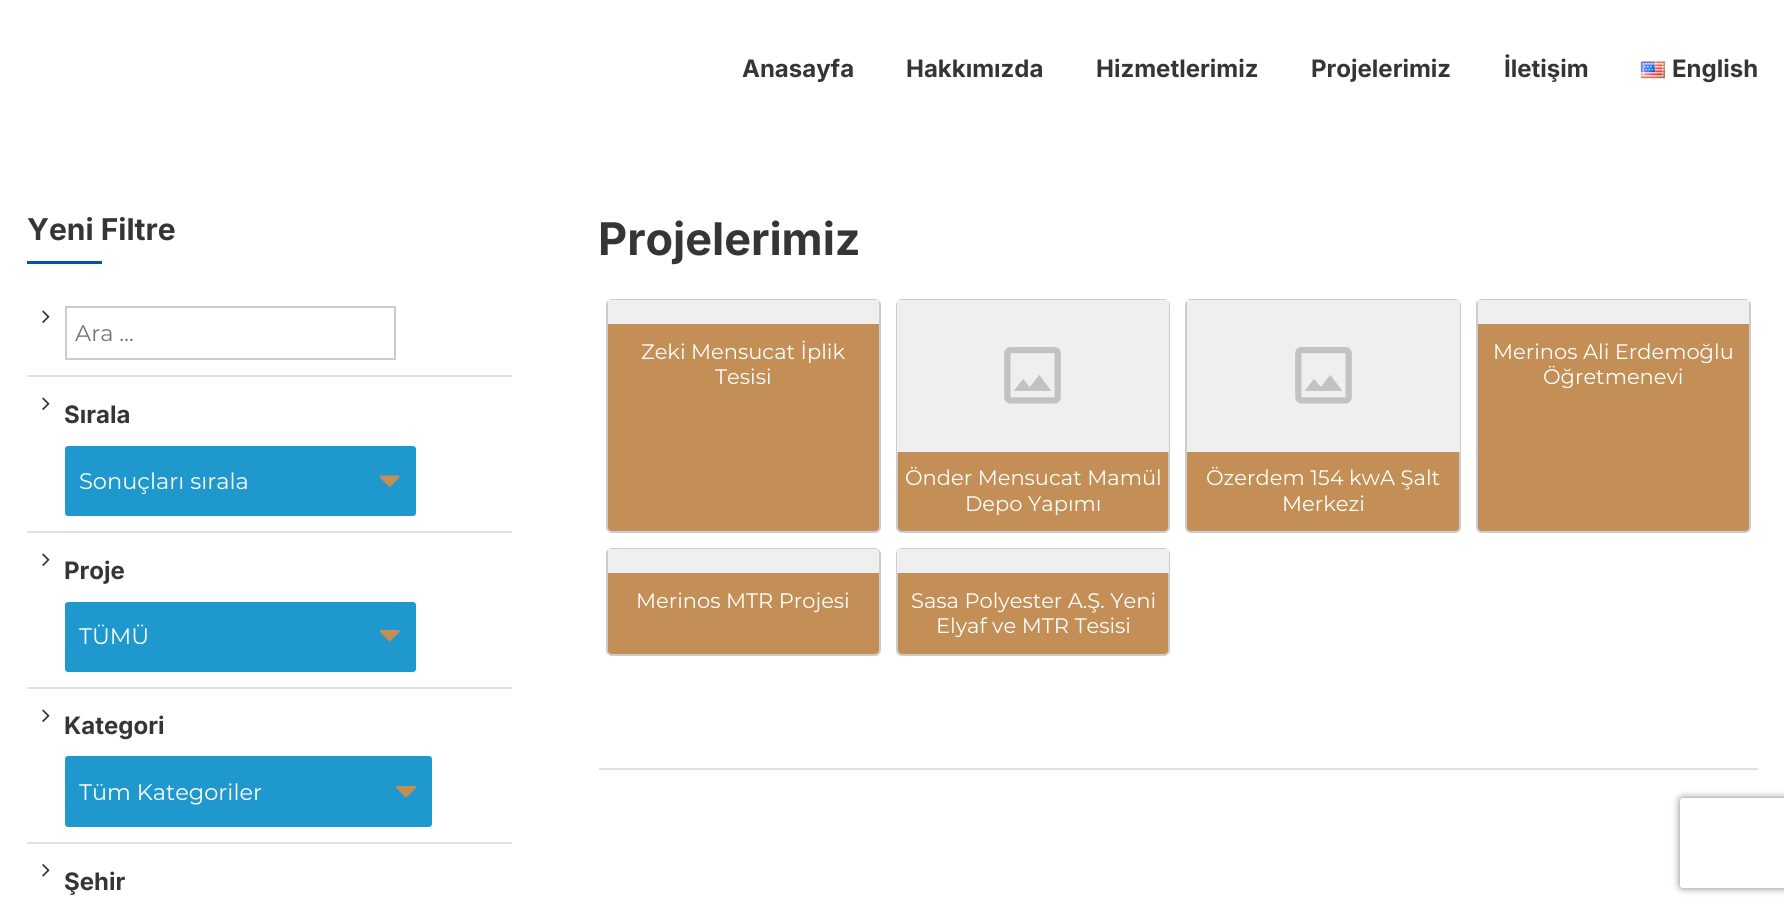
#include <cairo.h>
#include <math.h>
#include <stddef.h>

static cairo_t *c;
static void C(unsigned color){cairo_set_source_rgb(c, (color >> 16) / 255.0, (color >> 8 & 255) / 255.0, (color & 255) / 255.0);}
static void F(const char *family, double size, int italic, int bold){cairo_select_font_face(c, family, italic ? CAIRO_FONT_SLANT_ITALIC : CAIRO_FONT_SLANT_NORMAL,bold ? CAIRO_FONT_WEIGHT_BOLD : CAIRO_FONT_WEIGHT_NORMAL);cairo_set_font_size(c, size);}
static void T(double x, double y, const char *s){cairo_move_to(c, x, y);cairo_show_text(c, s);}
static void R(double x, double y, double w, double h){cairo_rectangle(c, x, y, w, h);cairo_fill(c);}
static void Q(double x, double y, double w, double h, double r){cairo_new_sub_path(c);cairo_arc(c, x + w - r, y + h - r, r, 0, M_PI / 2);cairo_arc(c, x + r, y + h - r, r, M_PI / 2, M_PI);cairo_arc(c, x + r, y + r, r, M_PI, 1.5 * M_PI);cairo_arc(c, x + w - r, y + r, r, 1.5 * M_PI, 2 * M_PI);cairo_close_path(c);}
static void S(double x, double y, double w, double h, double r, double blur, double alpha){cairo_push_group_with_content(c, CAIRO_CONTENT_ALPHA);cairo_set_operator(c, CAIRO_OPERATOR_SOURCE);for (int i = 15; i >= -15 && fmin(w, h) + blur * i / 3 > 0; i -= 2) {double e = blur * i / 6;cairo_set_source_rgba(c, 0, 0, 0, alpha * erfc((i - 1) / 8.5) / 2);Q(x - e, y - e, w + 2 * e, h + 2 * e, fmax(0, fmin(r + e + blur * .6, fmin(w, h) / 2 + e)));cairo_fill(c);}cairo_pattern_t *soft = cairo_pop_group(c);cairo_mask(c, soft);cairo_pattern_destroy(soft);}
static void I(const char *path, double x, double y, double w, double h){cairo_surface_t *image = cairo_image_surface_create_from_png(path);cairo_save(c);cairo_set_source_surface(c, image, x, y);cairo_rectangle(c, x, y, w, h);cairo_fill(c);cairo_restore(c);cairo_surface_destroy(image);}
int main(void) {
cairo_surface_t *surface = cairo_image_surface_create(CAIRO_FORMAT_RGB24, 1784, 909);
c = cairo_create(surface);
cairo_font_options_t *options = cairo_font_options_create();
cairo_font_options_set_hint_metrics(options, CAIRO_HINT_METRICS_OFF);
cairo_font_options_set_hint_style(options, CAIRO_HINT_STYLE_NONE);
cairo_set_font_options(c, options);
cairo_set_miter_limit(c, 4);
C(0xffffff);
cairo_paint(c);
F("Inter",24,0,1);
C(0x353535);
T(742,77,"Anasayfa");
T(906,77,"Hakkımızda");
T(1096,77,"Hizmetlerimiz");
T(1311,77,"Projelerimiz");
T(1504,77,"İletişim");
I("1.png",1640,61,25,18);
T(1672,77,"English");
F("Inter",30,0,1);
T(27,240,"Yeni Filtre");
C(0x0055a5);
R(27,261,75,3);
C(0xe1e1e1);
R(27,375,485,2);
I("2.png",42,310,8,13);
cairo_rectangle(c,66,307,329,52);
C(0xcccccc);
cairo_stroke(c);
F("Montserrat",22.5,0,0);
C(0x757575);
T(75,341,"Ara …");
C(0xe1e1e1);
R(27,531,485,2);
I("2.png",42,397,8,13);
F("Inter",24,0,1);
C(0x353535);
T(64,423,"Sırala");
C(0x1f99cd);
Q(65,446,351,70,3);
cairo_fill(c);
I("3.png",380,475,20,12);
F("Montserrat",22.5,0,0);
C(0xffffff);
T(79,489,"Sonuçları sırala");
C(0xe1e1e1);
R(27,687,485,2);
I("2.png",42,553,8,13);
F("Inter",24,0,1);
C(0x353535);
T(64,579,"Proje");
C(0x1f99cd);
Q(65,602,351,70,3);
cairo_fill(c);
I("4.png",380,629,20,13);
F("Montserrat",22.5,0,0);
C(0xffffff);
T(79,644,"TÜMÜ");
C(0xe1e1e1);
R(27,842,485,2);
I("2.png",42,709,8,13);
F("Inter",24,0,1);
C(0x353535);
T(64,734,"Kategori");
C(0x1f99cd);
Q(65,756,367,71,3);
cairo_fill(c);
I("5.png",396,785,21,13);
F("Montserrat",22.5,0,0);
C(0xffffff);
T(79,800,"Tüm Kategoriler");
I("6.png",42,864,8,13);
F("Inter",24,0,1);
C(0x353535);
T(64,890,"Şehir");
C(0xe1e1e1);
R(599,768,1159,2);
F("Inter",45,0,1);
C(0x353535);
T(598,255,"Projelerimiz");
C(0xc48f56);
Q(607,300,273,232,5);
cairo_fill_preserve(c);
C(0xcccccc);
cairo_stroke(c);
C(0xefefef);
R(608,300,271,24);
F("Montserrat",21,0,0);
C(0xffffff);
T(641,359,"Zeki Mensucat İplik");
T(715,384,"Tesisi");
C(0xc48f56);
Q(1477,300,273,232,5);
cairo_fill_preserve(c);
C(0xcccccc);
cairo_stroke(c);
C(0xefefef);
R(1478,300,271,24);
C(0xffffff);
T(1493,359,"Merinos Ali Erdemoğlu");
T(1543,384,"Öğretmenevi");
C(0xc48f56);
Q(897,300,272,232,5);
cairo_fill_preserve(c);
C(0xcccccc);
cairo_stroke(c);
C(0xefefef);
R(897,300,272,152);
I("7.png",1004,347,57,57);
C(0xffffff);
T(905,485,"Önder Mensucat Mamül");
T(965,511,"Depo Yapımı");
C(0xc48f56);
Q(1186,300,274,232,5);
cairo_fill_preserve(c);
C(0xcccccc);
cairo_stroke(c);
C(0xefefef);
R(1187,300,273,152);
I("7.png",1295,347,57,57);
C(0xffffff);
T(1206,485,"Özerdem 154 kwA Şalt");
T(1282,511,"Merkezi");
C(0xc48f56);
Q(607,549,273,106,5);
cairo_fill_preserve(c);
C(0xcccccc);
cairo_stroke(c);
C(0xefefef);
R(608,549,271,24);
C(0xffffff);
T(636,608,"Merinos MTR Projesi");
C(0xc48f56);
Q(897,549,272,106,5);
cairo_fill_preserve(c);
C(0xcccccc);
cairo_stroke(c);
C(0xefefef);
R(897,549,272,24);
C(0xffffff);
T(911,608,"Sasa Polyester A.Ş. Yeni");
T(936,633,"Elyaf ve MTR Tesisi");
cairo_save(c);
cairo_set_fill_rule(c,CAIRO_FILL_RULE_EVEN_ODD);
cairo_new_path(c);
cairo_move_to(c,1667,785);
cairo_line_to(c,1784,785);
cairo_line_to(c,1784,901);
cairo_line_to(c,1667,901);
cairo_close_path(c);
cairo_move_to(c,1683,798);
cairo_line_to(c,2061,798);
cairo_curve_to(c,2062.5,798,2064,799.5,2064,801);
cairo_line_to(c,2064,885);
cairo_curve_to(c,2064,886.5,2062.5,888,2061,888);
cairo_line_to(c,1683,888);
cairo_curve_to(c,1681.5,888,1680,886.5,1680,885);
cairo_line_to(c,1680,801);
cairo_curve_to(c,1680,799.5,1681.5,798,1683,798);
cairo_close_path(c);
cairo_clip(c);
C(0x808080);
S(1680,798,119,90,3,4,1);
cairo_restore(c);
cairo_surface_write_to_png(surface, "o.png");
cairo_font_options_destroy(options);
cairo_destroy(c);
cairo_surface_destroy(surface);
return 0;
}
